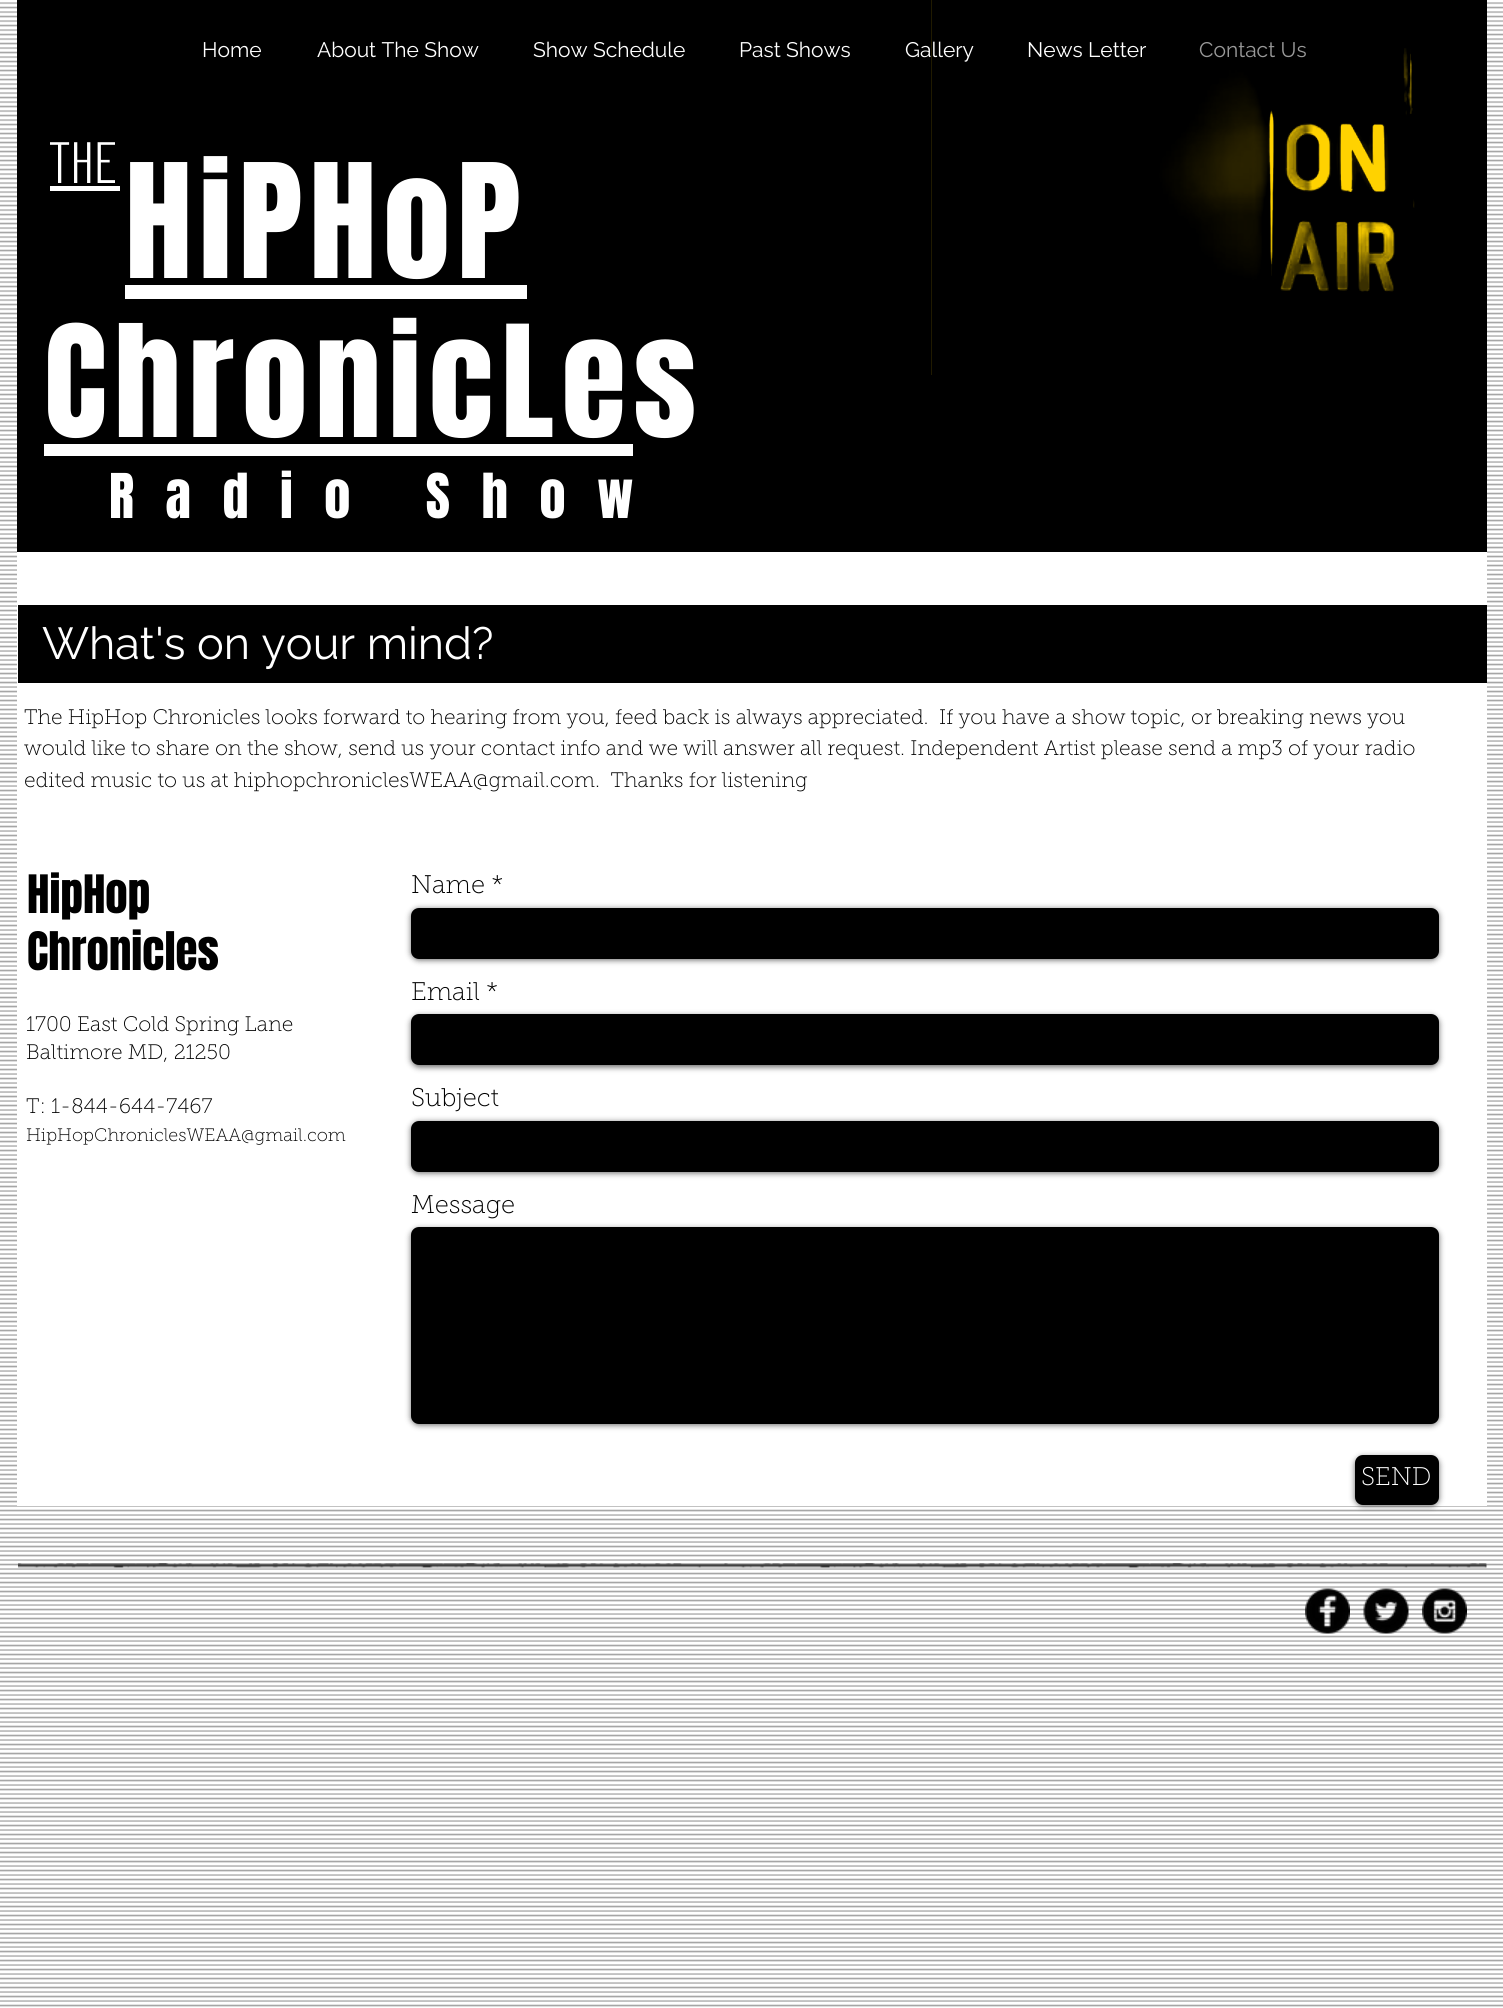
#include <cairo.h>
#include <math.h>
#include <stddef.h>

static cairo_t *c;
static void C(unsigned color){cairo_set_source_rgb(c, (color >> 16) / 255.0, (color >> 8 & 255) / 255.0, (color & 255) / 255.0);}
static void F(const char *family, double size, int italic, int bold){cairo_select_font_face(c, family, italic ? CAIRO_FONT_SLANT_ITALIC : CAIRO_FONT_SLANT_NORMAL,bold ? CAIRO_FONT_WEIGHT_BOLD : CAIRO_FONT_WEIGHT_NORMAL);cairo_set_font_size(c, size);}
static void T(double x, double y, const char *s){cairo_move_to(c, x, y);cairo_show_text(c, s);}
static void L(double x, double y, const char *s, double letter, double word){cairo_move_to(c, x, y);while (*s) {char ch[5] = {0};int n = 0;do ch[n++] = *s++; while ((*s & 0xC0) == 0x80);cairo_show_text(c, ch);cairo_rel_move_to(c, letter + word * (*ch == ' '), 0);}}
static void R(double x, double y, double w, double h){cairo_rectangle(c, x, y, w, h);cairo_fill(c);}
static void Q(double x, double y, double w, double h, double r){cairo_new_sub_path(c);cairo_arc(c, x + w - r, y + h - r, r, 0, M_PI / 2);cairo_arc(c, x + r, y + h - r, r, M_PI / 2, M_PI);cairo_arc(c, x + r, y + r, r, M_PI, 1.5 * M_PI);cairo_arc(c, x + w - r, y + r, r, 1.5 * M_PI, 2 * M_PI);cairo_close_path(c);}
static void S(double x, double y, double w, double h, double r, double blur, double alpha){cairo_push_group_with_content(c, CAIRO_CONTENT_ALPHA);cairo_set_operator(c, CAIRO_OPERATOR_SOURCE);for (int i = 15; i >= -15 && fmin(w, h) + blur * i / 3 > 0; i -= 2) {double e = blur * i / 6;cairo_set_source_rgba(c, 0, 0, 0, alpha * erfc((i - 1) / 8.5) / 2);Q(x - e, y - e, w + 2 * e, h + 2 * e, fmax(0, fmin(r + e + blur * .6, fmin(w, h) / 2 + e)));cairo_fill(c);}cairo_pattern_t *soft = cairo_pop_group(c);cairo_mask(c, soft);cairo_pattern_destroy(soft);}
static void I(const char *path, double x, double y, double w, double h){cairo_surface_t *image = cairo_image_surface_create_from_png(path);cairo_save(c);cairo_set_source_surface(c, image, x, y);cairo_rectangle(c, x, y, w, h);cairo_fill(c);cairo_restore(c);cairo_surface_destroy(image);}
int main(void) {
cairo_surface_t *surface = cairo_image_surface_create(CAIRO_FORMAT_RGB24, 1503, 2008);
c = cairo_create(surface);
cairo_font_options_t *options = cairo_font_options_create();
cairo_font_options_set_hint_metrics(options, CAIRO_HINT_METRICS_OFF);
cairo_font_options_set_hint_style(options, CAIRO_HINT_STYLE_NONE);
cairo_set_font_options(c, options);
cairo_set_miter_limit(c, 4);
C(0xffffff);
cairo_paint(c);
I("1.png",0,2,1503,2005);
C(0x000000);
R(17,0,1470,552);
I("2.png",931,0,484,375);
F("Raleway",21,0,0);
C(0xffffff);
T(202,57,"Home");
T(317,57,"About The Show");
T(533,57,"Show Schedule");
T(739,57,"Past Shows");
T(905,57,"Gallery");
T(1027,57,"News Letter");
C(0x999999);
T(1199,57,"Contact Us");
F("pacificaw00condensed",51,0,0);
C(0xffffff);
L(50,183,"The",2.5,0);
R(50,186,70,5);
F("Anton",135,0,0);
L(125,278,"HiPHoP",6.75,0);
R(125,285,402,14);
F("Anton",132,0,0);
L(44,437,"ChronicLes",7.75,0);
R(44,444,589,12);
F("Anton",52.5,0,0);
L(109,518,"Radio Show",31.5,0);
R(17,552,1470,954);
C(0x000000);
R(18,605,1469,78);
F("Raleway",45,0,0);
C(0xffffff);
T(42,659,"What's on your mind?");
F("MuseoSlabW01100 Thin",21,0,0);
C(0x000000);
T(24,724,"The HipHop Chronicles looks forward to hearing from you, feed back is always appreciated.  If you have a show topic, or breaking news you");
T(24,755,"would like to share on the show, send us your contact info and we will answer all request. Independent Artist please send a mp3 of your radio");
T(24,787,"edited music to us at hiphopchroniclesWEAA@gmail.com.  Thanks for listening");
F("Anton",45,0,0);
T(27,913,"HipHop");
T(27,970,"Chronicles");
F("MuseoSlabW01100 Thin",25.5,0,0);
T(411,893,"Name *");
C(0x000000);
S(411,909,1028,51,8,3,.6);
C(0x000000);
Q(411,908,1028,51,8);
cairo_fill(c);
T(411,1000,"Email *");
C(0x000000);
S(411,1016,1028,51,8,3,.6);
C(0x000000);
Q(411,1014,1028,51,8);
cairo_fill(c);
T(411,1106,"Subject");
C(0x000000);
S(411,1122,1028,51,8,3,.6);
C(0x000000);
Q(411,1121,1028,51,8);
cairo_fill(c);
T(411,1213,"Message");
C(0x000000);
S(411,1229,1028,196,8,3,.6);
C(0x000000);
Q(411,1227,1028,197,8);
cairo_fill(c);
C(0x000000);
S(1355,1457,84,49,8,3,.6);
C(0x000000);
Q(1355,1455,84,50,8);
cairo_fill(c);
C(0xffffff);
T(1361,1485,"SEND");
F("MuseoSlabW01100 Thin",21,0,0);
C(0x000000);
T(26,1031,"1700 East Cold Spring Lane");
T(26,1059,"Baltimore MD, 21250");
T(26,1113,"T: 1-844-644-7467");
F("MuseoSlabW01100 Thin",18,0,0);
T(26,1141,"HipHopChroniclesWEAA@gmail.com");
I("3.png",18,1563,1469,5);
I("4.png",1305,1588,45,46);
I("5.png",1363,1588,46,46);
I("6.png",1422,1588,45,46);
cairo_surface_write_to_png(surface, "o.png");
cairo_font_options_destroy(options);
cairo_destroy(c);
cairo_surface_destroy(surface);
return 0;
}
